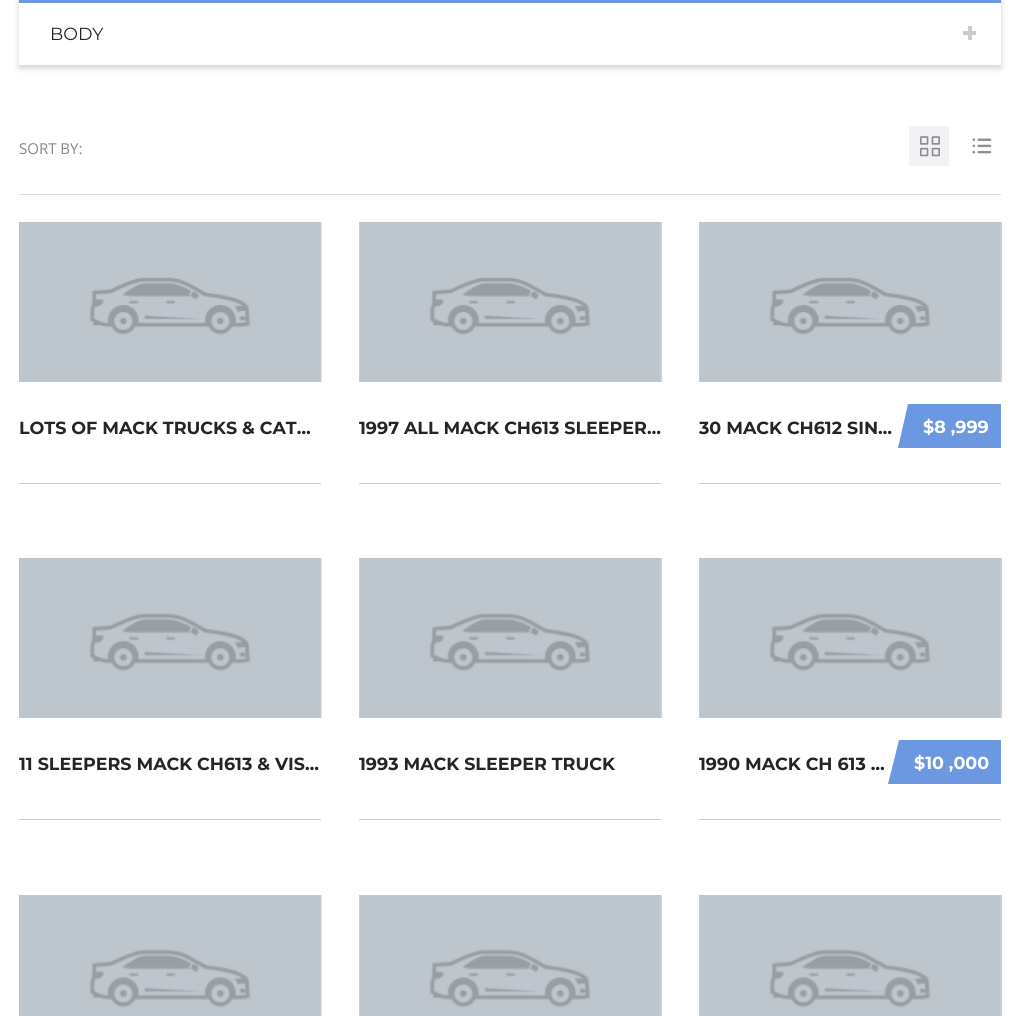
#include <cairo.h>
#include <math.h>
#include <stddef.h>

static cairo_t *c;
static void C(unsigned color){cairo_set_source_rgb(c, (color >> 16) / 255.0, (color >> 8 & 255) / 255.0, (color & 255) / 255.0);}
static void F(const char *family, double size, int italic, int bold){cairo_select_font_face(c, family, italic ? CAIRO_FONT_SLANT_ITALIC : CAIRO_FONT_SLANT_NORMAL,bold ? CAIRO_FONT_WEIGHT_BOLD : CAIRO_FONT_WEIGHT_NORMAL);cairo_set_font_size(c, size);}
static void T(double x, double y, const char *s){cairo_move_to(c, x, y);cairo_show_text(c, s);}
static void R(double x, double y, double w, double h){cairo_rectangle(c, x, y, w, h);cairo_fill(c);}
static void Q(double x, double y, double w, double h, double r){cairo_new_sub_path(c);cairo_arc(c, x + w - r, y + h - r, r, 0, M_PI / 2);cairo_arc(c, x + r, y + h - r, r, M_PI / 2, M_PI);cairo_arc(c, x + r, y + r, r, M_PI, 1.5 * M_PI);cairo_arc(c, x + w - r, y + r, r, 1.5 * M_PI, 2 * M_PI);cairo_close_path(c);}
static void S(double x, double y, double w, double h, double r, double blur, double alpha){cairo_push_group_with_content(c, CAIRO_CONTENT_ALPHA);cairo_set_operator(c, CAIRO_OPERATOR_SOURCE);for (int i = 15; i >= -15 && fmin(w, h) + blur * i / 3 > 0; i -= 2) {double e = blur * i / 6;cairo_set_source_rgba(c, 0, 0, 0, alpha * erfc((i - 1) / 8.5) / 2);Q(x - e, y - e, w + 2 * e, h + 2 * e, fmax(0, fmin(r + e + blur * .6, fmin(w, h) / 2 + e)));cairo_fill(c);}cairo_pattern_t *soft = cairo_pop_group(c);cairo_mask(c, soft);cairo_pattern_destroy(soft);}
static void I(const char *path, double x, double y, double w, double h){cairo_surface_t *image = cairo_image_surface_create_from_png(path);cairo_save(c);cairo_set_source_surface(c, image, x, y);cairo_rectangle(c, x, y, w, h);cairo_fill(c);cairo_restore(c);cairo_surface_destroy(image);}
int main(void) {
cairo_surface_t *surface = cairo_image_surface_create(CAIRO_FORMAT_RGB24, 1019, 1016);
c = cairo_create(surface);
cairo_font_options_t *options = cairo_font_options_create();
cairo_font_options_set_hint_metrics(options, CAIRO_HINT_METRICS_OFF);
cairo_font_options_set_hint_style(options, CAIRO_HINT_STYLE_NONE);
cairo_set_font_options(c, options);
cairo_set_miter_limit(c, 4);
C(0xffffff);
cairo_paint(c);
cairo_save(c);
cairo_set_fill_rule(c,CAIRO_FILL_RULE_EVEN_ODD);
cairo_new_path(c);
cairo_move_to(c,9,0);
cairo_line_to(c,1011,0);
cairo_line_to(c,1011,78);
cairo_line_to(c,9,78);
cairo_close_path(c);
cairo_move_to(c,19,-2);
cairo_line_to(c,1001,-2);
cairo_line_to(c,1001,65);
cairo_line_to(c,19,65);
cairo_close_path(c);
cairo_clip(c);
C(0x000000);
S(19,0,982,68,0,3,.18);
cairo_restore(c);
C(0x6c98e1);
R(19,0,982,3);
F("Montserrat",17.5,0,0);
C(0x232628);
T(50,40,"BODY");
C(0xcccccc);
R(963,31,13,4);
R(968,26,4,14);
C(0xdddddd);
R(19,194,982,1);
F("Open Sans",15,0,0);
C(0x888888);
T(19,154,"SORT BY:");
C(0xf0f2f5);
R(909,126,40,40);
I("1.png",920,136,20,21);
I("2.png",972,138,20,16);
I("3.png",19,222,303,160);
C(0xcccccc);
R(19,483,302,1);
F("Montserrat",17.5,0,1);
C(0x232628);
T(19,434,"LOTS OF MACK TRUCKS & CAT…");
I("4.png",359,222,303,160);
C(0xcccccc);
R(359,483,302,1);
C(0x232628);
T(359,434,"1997 ALL MACK CH613 SLEEPER…");
I("4.png",699,222,303,160);
C(0xcccccc);
R(699,483,302,1);
C(0x232628);
T(699,434,"30 MACK CH612 SIN…");
C(0x6c98e1);
R(938,404,63,44);
cairo_new_path(c);
cairo_move_to(c,908,404);
cairo_line_to(c,948,404);
cairo_line_to(c,938,448);
cairo_line_to(c,898,448);
cairo_close_path(c);
cairo_fill(c);
C(0xffffff);
T(923,433,"$8 ,999");
I("5.png",19,558,303,160);
C(0xcccccc);
R(19,819,302,1);
C(0x232628);
T(19,770,"11 SLEEPERS MACK CH613 & VIS…");
I("6.png",359,558,303,160);
C(0xcccccc);
R(359,819,302,1);
C(0x232628);
T(359,770,"1993 MACK SLEEPER TRUCK");
I("6.png",699,558,303,160);
C(0xcccccc);
R(699,819,302,1);
C(0x232628);
T(699,770,"1990 MACK CH 613 …");
C(0x6c98e1);
R(928,740,73,44);
cairo_new_path(c);
cairo_move_to(c,899,740);
cairo_line_to(c,939,740);
cairo_line_to(c,928,784);
cairo_line_to(c,888,784);
cairo_close_path(c);
cairo_fill(c);
C(0xffffff);
T(914,769,"$10 ,000");
I("7.png",19,895,303,121);
I("8.png",359,895,303,121);
I("8.png",699,895,303,121);
cairo_surface_write_to_png(surface, "o.png");
cairo_font_options_destroy(options);
cairo_destroy(c);
cairo_surface_destroy(surface);
return 0;
}
